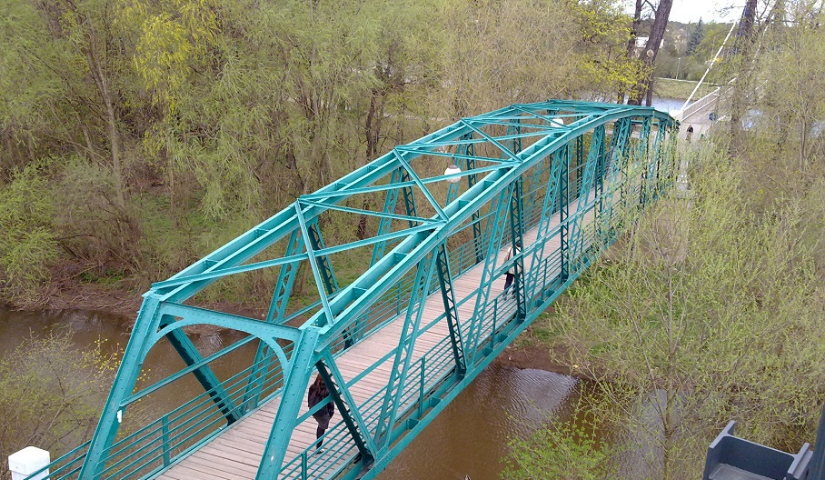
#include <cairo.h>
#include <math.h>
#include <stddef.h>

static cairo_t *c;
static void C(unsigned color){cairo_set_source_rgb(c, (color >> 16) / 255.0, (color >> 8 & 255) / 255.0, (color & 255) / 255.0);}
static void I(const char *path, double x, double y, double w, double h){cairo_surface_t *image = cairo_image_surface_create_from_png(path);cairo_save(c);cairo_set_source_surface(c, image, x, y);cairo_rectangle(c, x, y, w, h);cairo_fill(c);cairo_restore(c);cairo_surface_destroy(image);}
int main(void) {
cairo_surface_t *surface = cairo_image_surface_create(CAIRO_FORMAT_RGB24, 825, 480);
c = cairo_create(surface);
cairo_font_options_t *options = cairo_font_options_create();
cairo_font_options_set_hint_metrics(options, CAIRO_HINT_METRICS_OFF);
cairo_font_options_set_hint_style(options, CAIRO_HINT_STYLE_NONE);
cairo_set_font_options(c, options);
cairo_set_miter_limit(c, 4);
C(0xffffff);
cairo_paint(c);
I("1.png",0,0,825,480);
cairo_surface_write_to_png(surface, "o.png");
cairo_font_options_destroy(options);
cairo_destroy(c);
cairo_surface_destroy(surface);
return 0;
}
